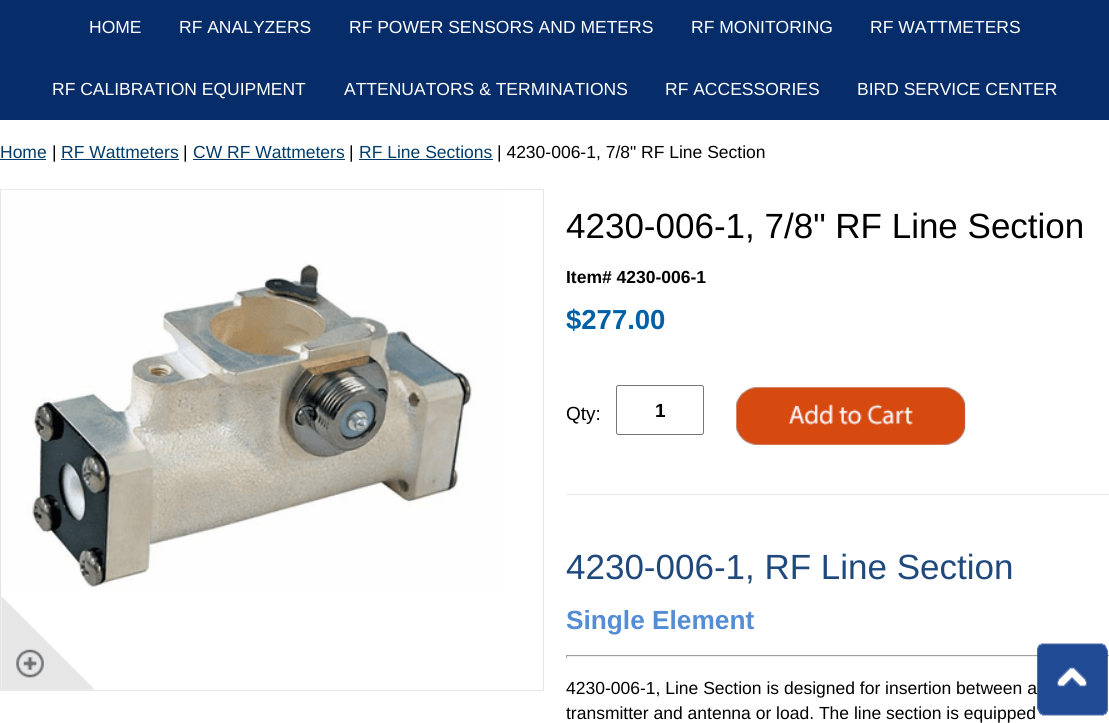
#include <cairo.h>
#include <math.h>
#include <stddef.h>

static cairo_t *c;
static void C(unsigned color){cairo_set_source_rgb(c, (color >> 16) / 255.0, (color >> 8 & 255) / 255.0, (color & 255) / 255.0);}
static void F(const char *family, double size, int italic, int bold){cairo_select_font_face(c, family, italic ? CAIRO_FONT_SLANT_ITALIC : CAIRO_FONT_SLANT_NORMAL,bold ? CAIRO_FONT_WEIGHT_BOLD : CAIRO_FONT_WEIGHT_NORMAL);cairo_set_font_size(c, size);}
static void T(double x, double y, const char *s){cairo_move_to(c, x, y);cairo_show_text(c, s);}
static void R(double x, double y, double w, double h){cairo_rectangle(c, x, y, w, h);cairo_fill(c);}
static void Q(double x, double y, double w, double h, double r){cairo_new_sub_path(c);cairo_arc(c, x + w - r, y + h - r, r, 0, M_PI / 2);cairo_arc(c, x + r, y + h - r, r, M_PI / 2, M_PI);cairo_arc(c, x + r, y + r, r, M_PI, 1.5 * M_PI);cairo_arc(c, x + w - r, y + r, r, 1.5 * M_PI, 2 * M_PI);cairo_close_path(c);}
static void I(const char *path, double x, double y, double w, double h){cairo_surface_t *image = cairo_image_surface_create_from_png(path);cairo_save(c);cairo_set_source_surface(c, image, x, y);cairo_rectangle(c, x, y, w, h);cairo_fill(c);cairo_restore(c);cairo_surface_destroy(image);}
int main(void) {
cairo_surface_t *surface = cairo_image_surface_create(CAIRO_FORMAT_RGB24, 1109, 723);
c = cairo_create(surface);
cairo_font_options_t *options = cairo_font_options_create();
cairo_font_options_set_hint_metrics(options, CAIRO_HINT_METRICS_OFF);
cairo_font_options_set_hint_style(options, CAIRO_HINT_STYLE_NONE);
cairo_set_font_options(c, options);
cairo_set_miter_limit(c, 4);
C(0xffffff);
cairo_paint(c);
C(0x062d6a);
R(0,0,1109,120);
F("Liberation Sans",17.5,0,0);
C(0xffffff);
T(89,33,"HOME");
T(179,33,"RF ANALYZERS");
T(349,33,"RF POWER SENSORS AND METERS");
T(691,33,"RF MONITORING");
T(870,33,"RF WATTMETERS");
T(52,95,"RF CALIBRATION EQUIPMENT");
T(344,95,"ATTENUATORS & TERMINATIONS");
T(665,95,"RF ACCESSORIES");
T(857,95,"BIRD SERVICE CENTER");
C(0x003c69);
T(0,158,"Home");
R(0,159,46,1);
C(0x000000);
T(52,158,"|");
C(0x003c69);
T(61,158,"RF Wattmeters");
R(61,159,118,1);
C(0x000000);
T(183,158,"|");
C(0x003c69);
T(193,158,"CW RF Wattmeters");
R(193,159,152,1);
C(0x000000);
T(349,158,"|");
C(0x003c69);
T(359,158,"RF Line Sections");
R(359,159,134,1);
C(0x000000);
T(497,158,"| 4230-006-1, 7/8\" RF Line Section");
cairo_rectangle(c,.5,189.5,543,501);
C(0xe6e6e6);
cairo_set_line_width(c,1);
cairo_stroke(c);
I("1.png",1,189,500,399);
I("2.png",1,596,94,94);
F("Liberation Sans",35,0,0);
C(0x000000);
T(566,238,"4230-006-1, 7/8\" RF Line Section");
F("Liberation Sans",17.5,0,1);
T(566,283,"Item# 4230-006-1");
F("Liberation Sans",27.5,0,1);
C(0x0060a7);
T(566,329,"$277.00");
F("Liberation Sans",19,0,0);
C(0x000000);
T(566,420,"Qty:");
Q(616.5,385.5,87,49,2);
C(0x767676);
cairo_stroke(c);
F("Liberation Sans",19,0,1);
C(0x000000);
T(655,417,"1");
I("3.png",736,387,230,58);
C(0xe6e6e6);
R(566,494,543,1);
F("Liberation Sans",35,0,0);
C(0x1f497d);
T(566,579,"4230-006-1, RF Line Section");
F("Liberation Sans",26.25,0,1);
C(0x548dd4);
T(566,629,"Single Element");
C(0x9f9f9f);
R(566,655,543,1);
C(0xeeeeee);
R(566,656,543,1);
C(0x9f9f9f);
R(566,655,1,3);
F("Liberation Sans",17.5,0,0);
C(0x000000);
T(566,694,"4230-006-1, Line Section is designed for insertion between a");
T(566,719,"transmitter and antenna or load. The line section is equipped");
I("4.png",1037,643,71,73);
cairo_surface_write_to_png(surface, "o.png");
cairo_font_options_destroy(options);
cairo_destroy(c);
cairo_surface_destroy(surface);
return 0;
}
